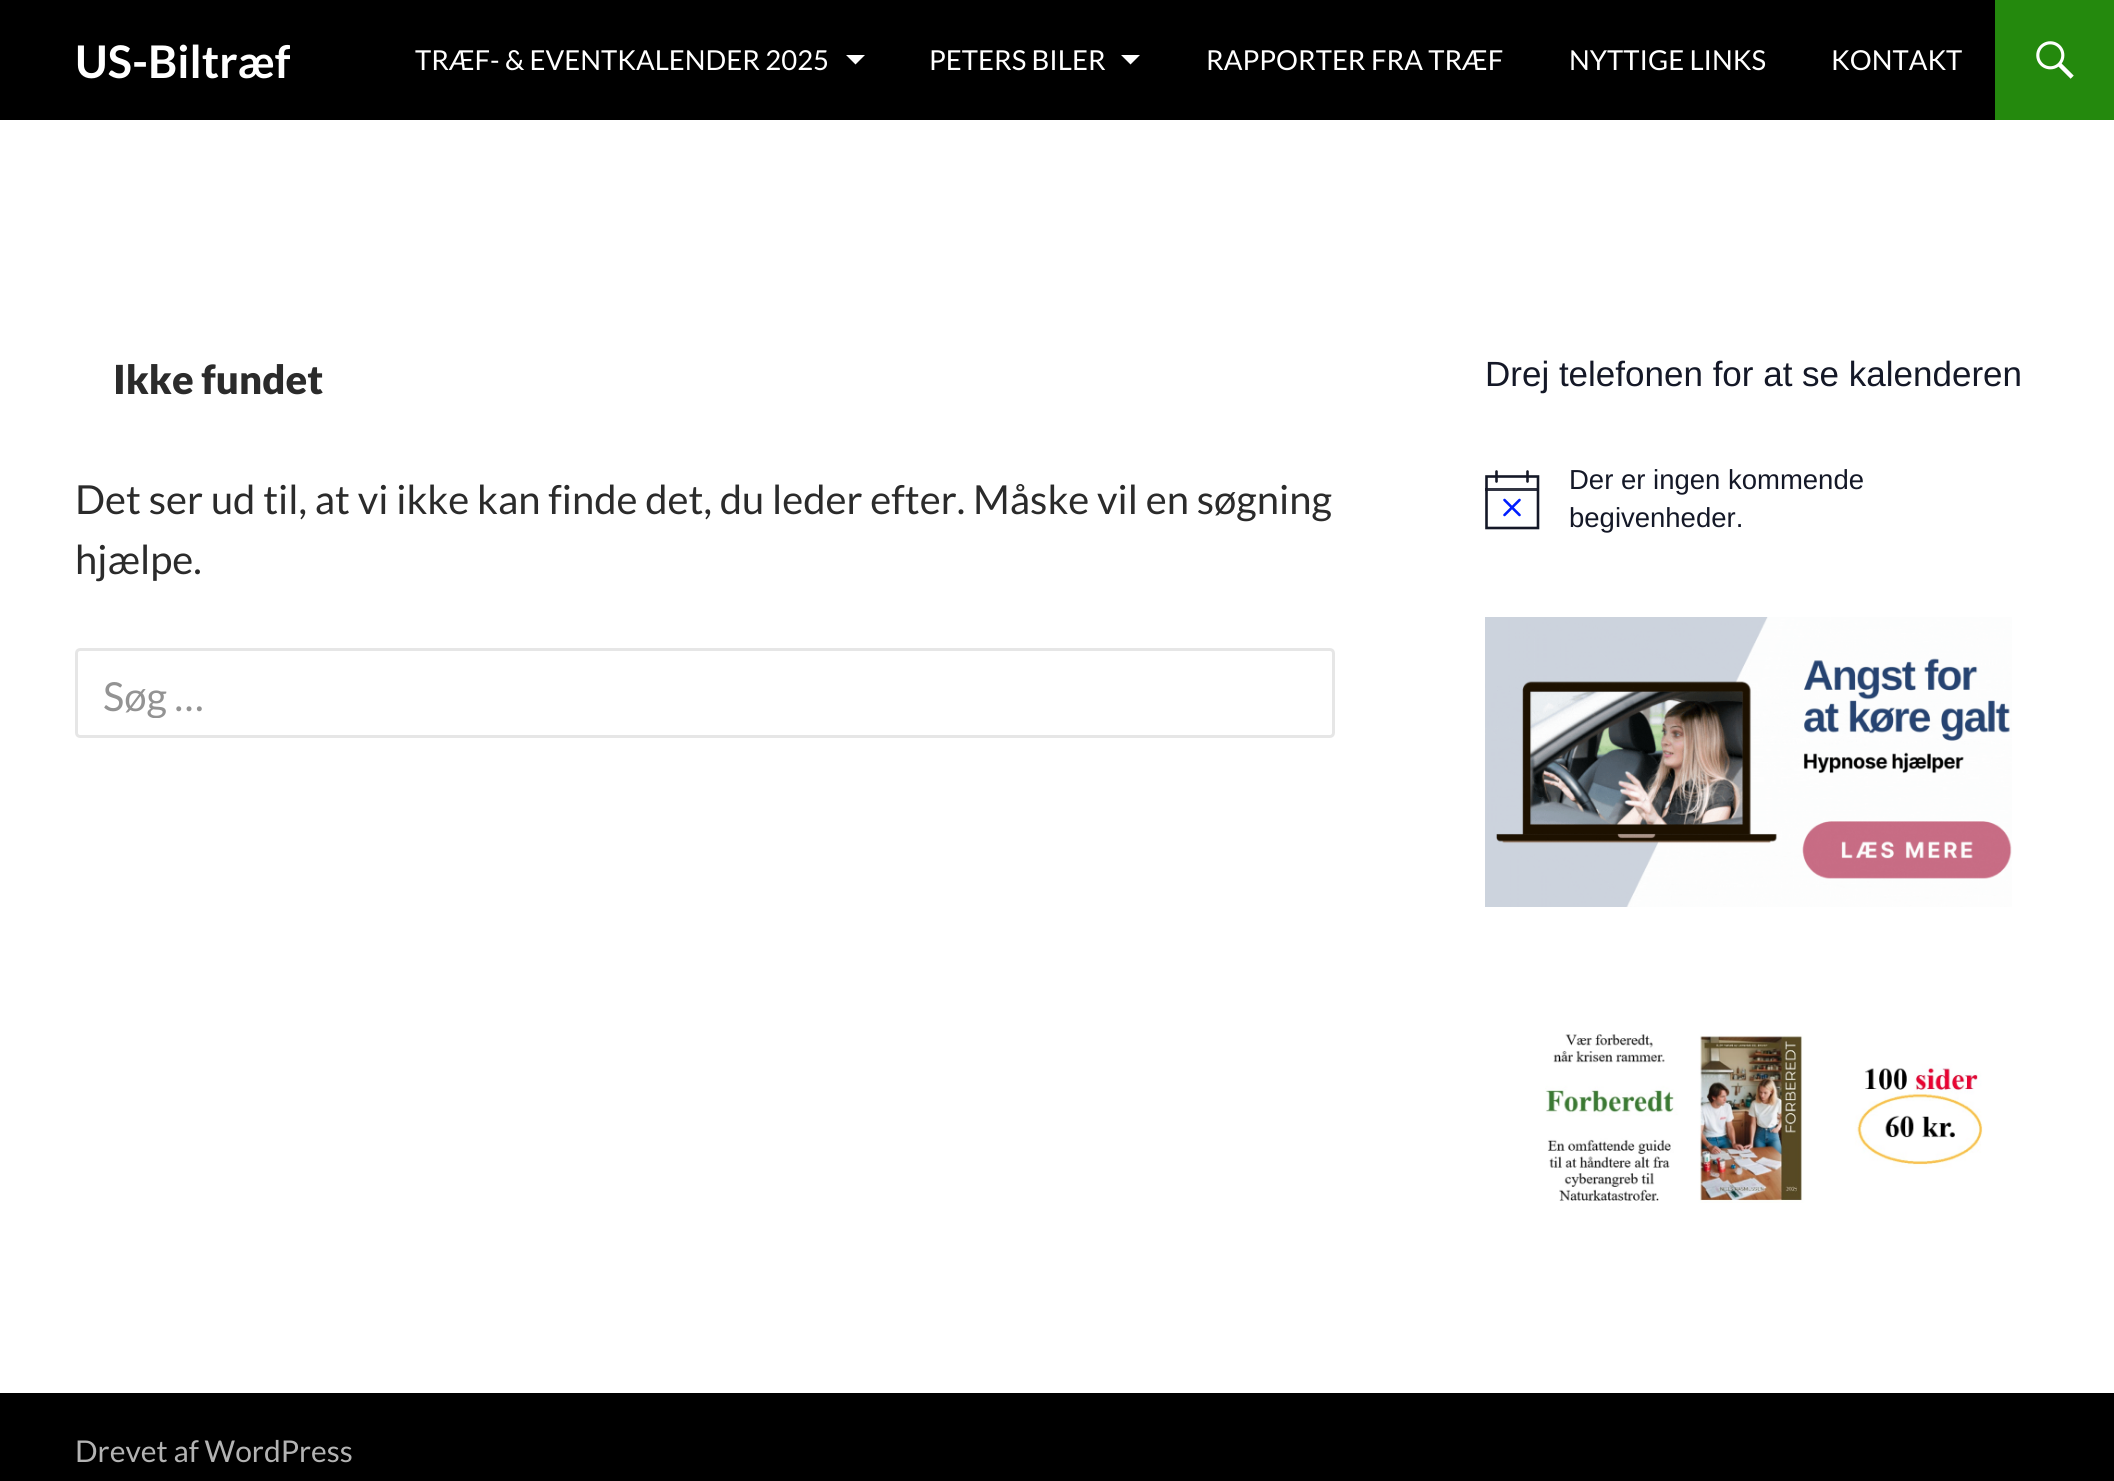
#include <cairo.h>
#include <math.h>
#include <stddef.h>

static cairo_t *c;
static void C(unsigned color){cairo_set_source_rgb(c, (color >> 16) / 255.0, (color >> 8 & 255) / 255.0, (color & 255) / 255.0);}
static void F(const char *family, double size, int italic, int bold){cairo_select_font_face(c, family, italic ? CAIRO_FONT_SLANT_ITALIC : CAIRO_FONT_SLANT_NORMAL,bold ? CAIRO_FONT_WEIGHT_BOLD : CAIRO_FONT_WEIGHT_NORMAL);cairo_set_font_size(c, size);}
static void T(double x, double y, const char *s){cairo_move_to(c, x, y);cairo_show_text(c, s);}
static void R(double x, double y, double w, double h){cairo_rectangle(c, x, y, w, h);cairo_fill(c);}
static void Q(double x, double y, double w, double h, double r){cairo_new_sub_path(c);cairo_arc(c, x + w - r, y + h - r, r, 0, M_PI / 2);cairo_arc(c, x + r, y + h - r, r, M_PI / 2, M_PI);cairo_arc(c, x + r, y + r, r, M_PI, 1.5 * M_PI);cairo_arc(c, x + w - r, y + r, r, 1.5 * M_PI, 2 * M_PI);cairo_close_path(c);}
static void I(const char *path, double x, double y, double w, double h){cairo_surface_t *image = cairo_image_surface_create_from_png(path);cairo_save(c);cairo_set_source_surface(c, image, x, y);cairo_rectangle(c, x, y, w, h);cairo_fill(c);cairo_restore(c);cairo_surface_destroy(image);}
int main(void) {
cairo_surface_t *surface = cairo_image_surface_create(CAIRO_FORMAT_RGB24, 2114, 1481);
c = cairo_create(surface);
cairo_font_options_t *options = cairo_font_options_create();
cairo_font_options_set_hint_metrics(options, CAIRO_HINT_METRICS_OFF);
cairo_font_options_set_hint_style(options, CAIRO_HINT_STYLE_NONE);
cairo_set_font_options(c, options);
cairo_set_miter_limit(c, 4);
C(0xffffff);
cairo_paint(c);
C(0x000000);
R(0,0,1995,120);
cairo_save(c);
cairo_rectangle(c,75,0,215,120);
cairo_clip(c);
F("Lato",45,0,1);
C(0xffffff);
T(75,78,"US-Biltræf");
cairo_restore(c);
F("Lato",27.5,0,0);
C(0xffffff);
T(415,70,"TRÆF- & EVENTKALENDER 2025");
cairo_new_path(c);
cairo_move_to(c,846,55);
cairo_line_to(c,865,55);
cairo_line_to(c,855.5,64.5);
cairo_close_path(c);
cairo_fill(c);
T(929,70,"PETERS BILER");
cairo_new_path(c);
cairo_move_to(c,1121,55);
cairo_line_to(c,1140,55);
cairo_line_to(c,1130.5,64.5);
cairo_close_path(c);
cairo_fill(c);
T(1206,70,"RAPPORTER FRA TRÆF");
T(1569,70,"NYTTIGE LINKS");
T(1831,70,"KONTAKT");
C(0x24890d);
R(1995,0,119,120);
I("1.png",2036,41,38,38);
F("Lato Black",40,0,0);
C(0x2b2b2b);
T(113,394,"Ikke fundet");
F("Lato",40,0,0);
T(75,514,"Det ser ud til, at vi ikke kan finde det, du leder efter. Måske vil en søgning");
T(75,574,"hjælpe.");
Q(76.5,649.5,1257,87,3.5);
C(0xe6e6e6);
cairo_set_line_width(c,3);
cairo_stroke(c);
cairo_save(c);
cairo_rectangle(c,103,670,1167,48);
cairo_clip(c);
C(0x939393);
T(103,711,"Søg …");
cairo_restore(c);
F("Liberation Sans",35,0,0);
C(0x141827);
T(1485,386,"Drej telefonen for at se kalenderen");
cairo_new_path(c);
cairo_move_to(c,1486.5,476.5);
cairo_line_to(c,1538,476.5);
cairo_line_to(c,1538,528);
cairo_line_to(c,1486.5,528);
cairo_close_path(c);
cairo_set_line_width(c,2.6);
cairo_stroke(c);
cairo_new_path(c);
cairo_move_to(c,1504.5,500);
cairo_line_to(c,1519.5,515);
cairo_move_to(c,1519.5,500);
cairo_line_to(c,1504.5,515);
C(0x001dff);
cairo_set_line_cap(c,CAIRO_LINE_CAP_ROUND);
cairo_stroke(c);
cairo_new_path(c);
cairo_move_to(c,1496.5,471.5);
cairo_line_to(c,1496.5,481.5);
cairo_move_to(c,1527.5,471.5);
cairo_line_to(c,1527.5,481.5);
C(0x141827);
cairo_stroke(c);
cairo_set_source_rgba(c,0.078,0.094,0.153,0.87);
R(1485,488,54,3);
F("Liberation Sans",27.5,0,0);
C(0x141827);
T(1569,489,"Der er ingen kommende");
T(1569,527,"begivenheder.");
I("2.png",1485,617,527,290);
I("3.png",1545,1034,438,169);
C(0x000000);
R(0,1393,2114,88);
F("Lato",30,0,0);
C(0xb3b3b3);
T(75,1462,"Drevet af WordPress");
cairo_surface_write_to_png(surface, "o.png");
cairo_font_options_destroy(options);
cairo_destroy(c);
cairo_surface_destroy(surface);
return 0;
}
